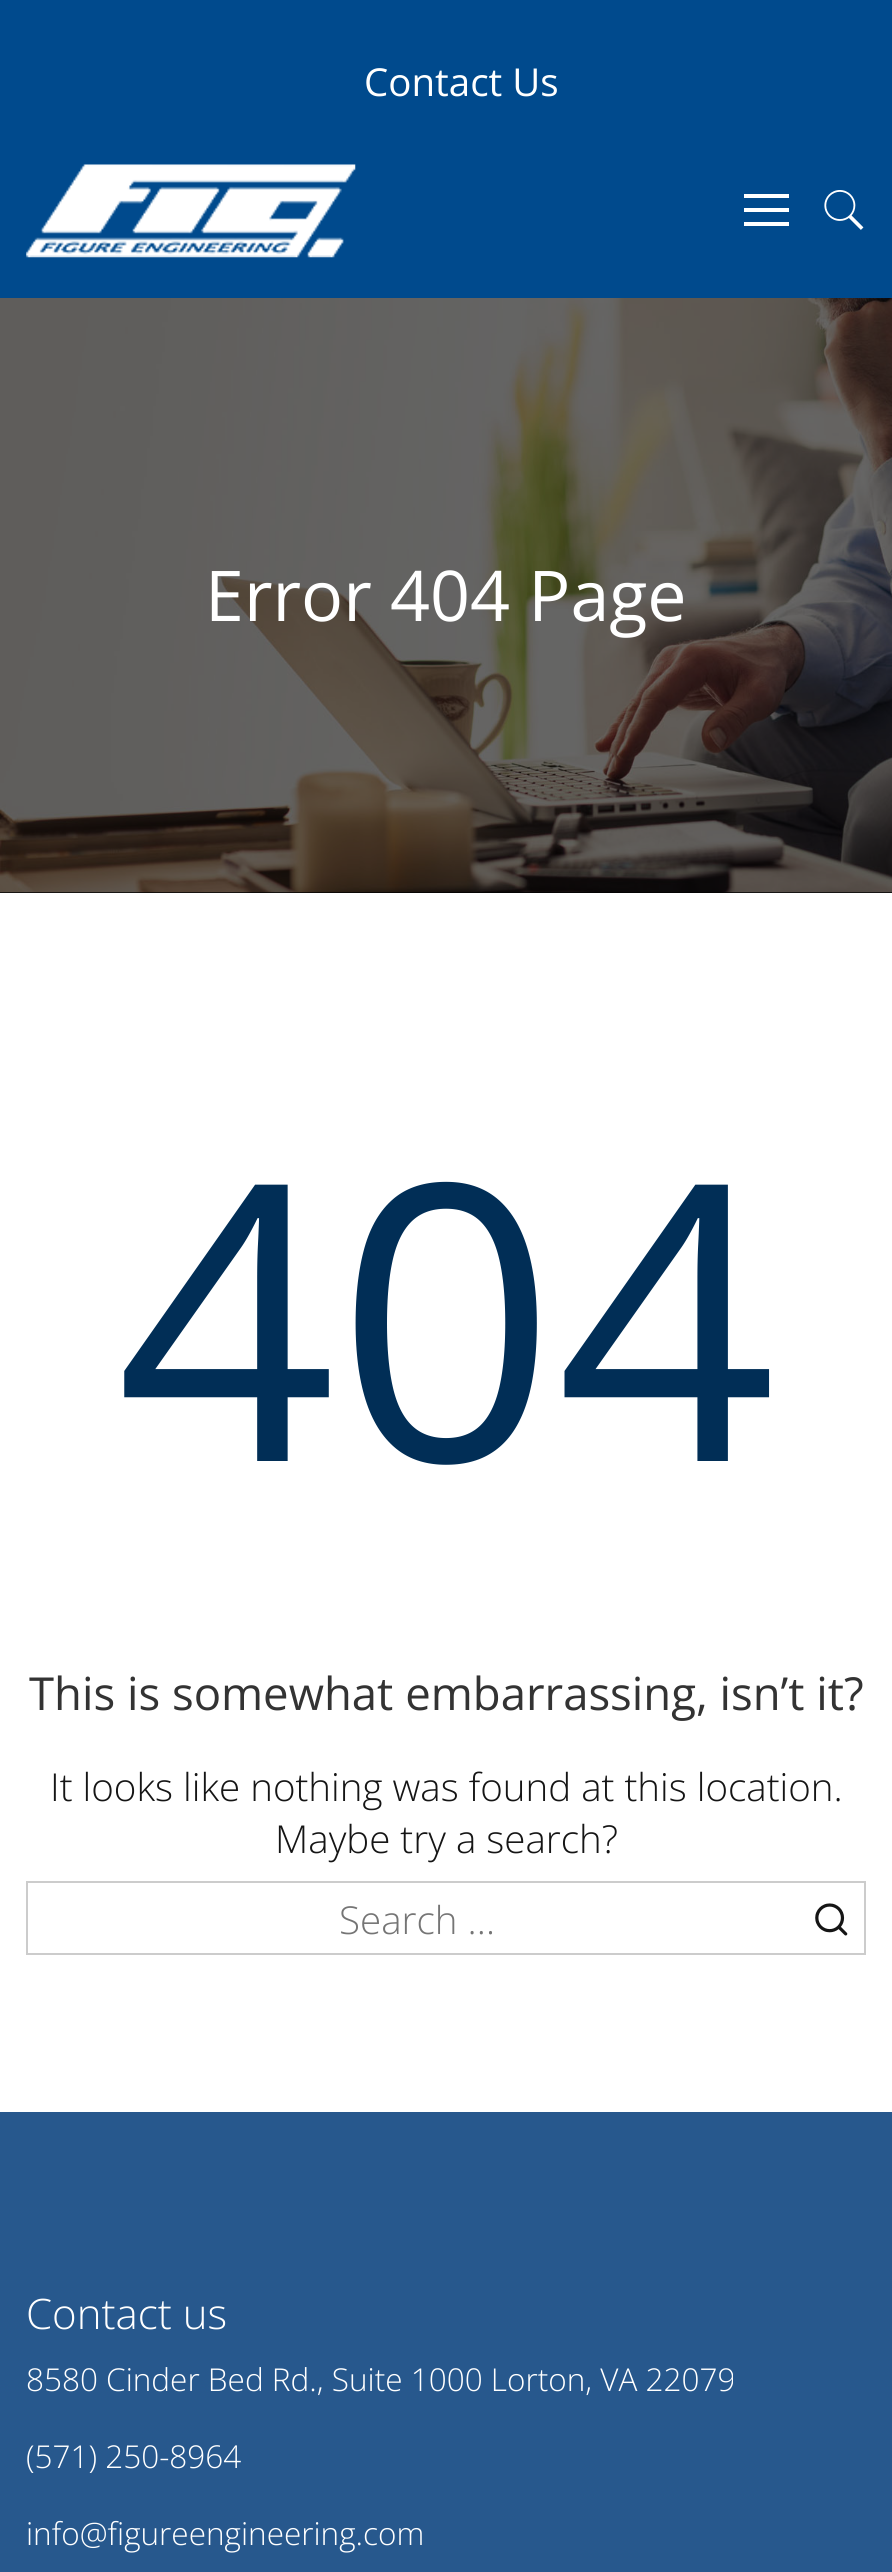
#include <cairo.h>
#include <math.h>
#include <stddef.h>

static cairo_t *c;
static void C(unsigned color){cairo_set_source_rgb(c, (color >> 16) / 255.0, (color >> 8 & 255) / 255.0, (color & 255) / 255.0);}
static void F(const char *family, double size, int italic, int bold){cairo_select_font_face(c, family, italic ? CAIRO_FONT_SLANT_ITALIC : CAIRO_FONT_SLANT_NORMAL,bold ? CAIRO_FONT_WEIGHT_BOLD : CAIRO_FONT_WEIGHT_NORMAL);cairo_set_font_size(c, size);}
static void T(double x, double y, const char *s){cairo_move_to(c, x, y);cairo_show_text(c, s);}
static void R(double x, double y, double w, double h){cairo_rectangle(c, x, y, w, h);cairo_fill(c);}
static void I(const char *path, double x, double y, double w, double h){cairo_surface_t *image = cairo_image_surface_create_from_png(path);cairo_save(c);cairo_set_source_surface(c, image, x, y);cairo_rectangle(c, x, y, w, h);cairo_fill(c);cairo_restore(c);cairo_surface_destroy(image);}
int main(void) {
cairo_surface_t *surface = cairo_image_surface_create(CAIRO_FORMAT_RGB24, 892, 2572);
c = cairo_create(surface);
cairo_font_options_t *options = cairo_font_options_create();
cairo_font_options_set_hint_metrics(options, CAIRO_HINT_METRICS_OFF);
cairo_font_options_set_hint_style(options, CAIRO_HINT_STYLE_NONE);
cairo_set_font_options(c, options);
cairo_set_miter_limit(c, 4);
C(0xffffff);
cairo_paint(c);
C(0x004a8d);
R(0,0,892,298);
F("Open Sans",38.5,0,0);
C(0xffffff);
T(364,96,"Contact Us");
I("1.png",26,164,330,94);
R(744,194,45,4);
R(744,208,45,4);
R(744,222,45,4);
I("2.png",824,190,40,40);
C(0x010101);
R(0,892,892,1);
I("3.png",0,298,892,595);
F("Open Sans",70,0,0);
C(0xffffff);
T(205,621,"Error 404 Page");
F("Open Sans",385,0,0);
C(0x012e56);
T(116,1461,"404");
F("Open Sans",45.5,0,0);
C(0x333333);
T(29,1710,"This is somewhat embarrassing, isn’t it?");
F("Open Sans Light",38.5,0,0);
C(0x151515);
T(50,1801,"It looks like nothing was found at this location.");
T(275,1853,"Maybe try a search?");
cairo_rectangle(c,27,1882,838,72);
C(0xcccccc);
cairo_stroke(c);
C(0x757575);
T(339,1934,"Search …");
I("4.png",815,1903,33,33);
C(0x27588d);
R(0,2112,892,460);
F("Open Sans Light",42,0,0);
C(0xffffff);
T(26,2329,"Contact us");
F("Open Sans Light",31.5,0,0);
T(26,2391,"8580 Cinder Bed Rd., Suite 1000 Lorton, VA 22079");
T(26,2468,"(571) 250-8964");
T(26,2545,"info@figureengineering.com");
cairo_surface_write_to_png(surface, "o.png");
cairo_font_options_destroy(options);
cairo_destroy(c);
cairo_surface_destroy(surface);
return 0;
}
